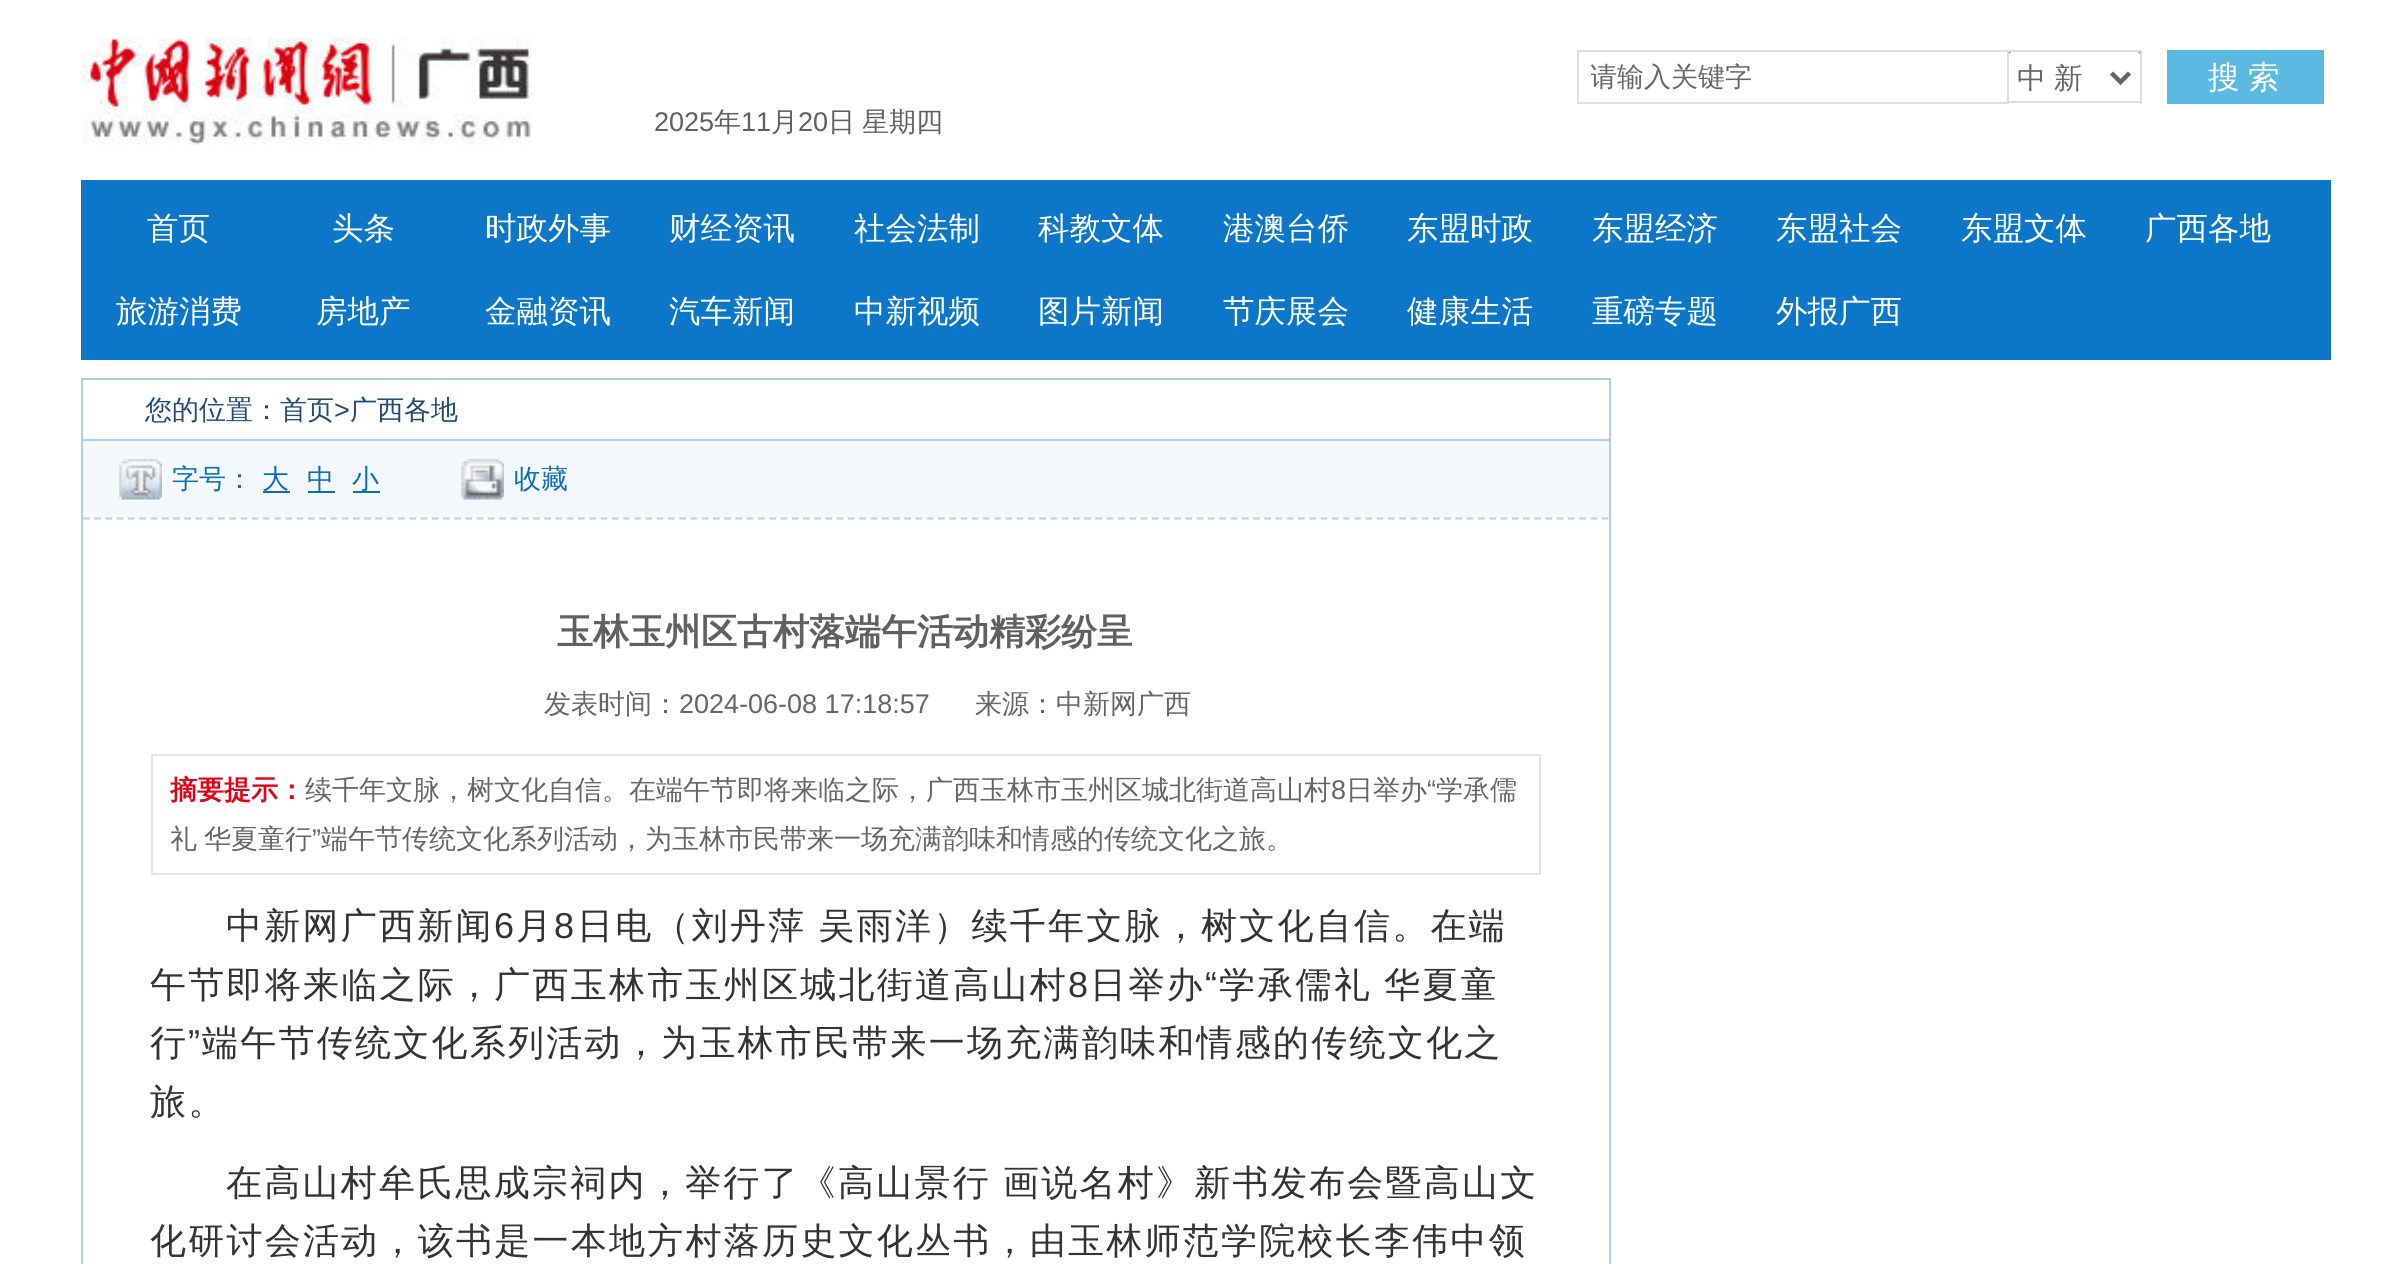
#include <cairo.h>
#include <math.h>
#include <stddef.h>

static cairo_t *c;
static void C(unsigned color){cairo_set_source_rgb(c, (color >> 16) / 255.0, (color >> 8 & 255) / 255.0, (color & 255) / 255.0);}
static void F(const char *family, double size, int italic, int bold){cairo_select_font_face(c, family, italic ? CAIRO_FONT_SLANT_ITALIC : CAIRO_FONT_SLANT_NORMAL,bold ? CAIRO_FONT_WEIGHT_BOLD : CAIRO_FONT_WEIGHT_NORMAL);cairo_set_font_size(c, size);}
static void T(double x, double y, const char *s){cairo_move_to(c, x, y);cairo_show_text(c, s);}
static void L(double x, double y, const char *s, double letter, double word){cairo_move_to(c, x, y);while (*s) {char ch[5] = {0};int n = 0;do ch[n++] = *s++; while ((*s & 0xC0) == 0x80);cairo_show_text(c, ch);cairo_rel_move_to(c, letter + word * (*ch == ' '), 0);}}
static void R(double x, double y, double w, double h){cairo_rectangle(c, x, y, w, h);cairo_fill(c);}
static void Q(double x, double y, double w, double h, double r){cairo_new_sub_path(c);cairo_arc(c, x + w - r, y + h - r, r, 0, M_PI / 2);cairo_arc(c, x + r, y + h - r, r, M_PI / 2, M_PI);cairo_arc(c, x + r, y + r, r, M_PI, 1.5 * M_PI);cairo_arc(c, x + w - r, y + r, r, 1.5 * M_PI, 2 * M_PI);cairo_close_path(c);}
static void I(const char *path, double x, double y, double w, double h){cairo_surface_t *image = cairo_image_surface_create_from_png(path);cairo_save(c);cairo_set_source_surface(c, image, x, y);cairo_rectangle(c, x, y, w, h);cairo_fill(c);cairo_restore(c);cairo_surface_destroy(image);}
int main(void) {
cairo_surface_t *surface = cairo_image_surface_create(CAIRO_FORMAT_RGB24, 2408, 1264);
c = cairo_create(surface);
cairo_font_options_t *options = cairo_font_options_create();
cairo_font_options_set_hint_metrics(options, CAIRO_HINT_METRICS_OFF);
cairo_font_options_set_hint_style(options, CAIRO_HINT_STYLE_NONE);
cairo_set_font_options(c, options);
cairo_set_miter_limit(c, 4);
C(0xffffff);
cairo_paint(c);
I("1.png",81,37,452,108);
cairo_rectangle(c,1578,51,430,52);
C(0xdedede);
cairo_stroke(c);
cairo_save(c);
cairo_rectangle(c,1591,52,405,49);
cairo_clip(c);
F("WenQuanYi Zen Hei Medium",27,0,0);
C(0x666666);
T(1590,86,"请输入关键字");
cairo_restore(c);
R(2009,50,133,2);
R(2140,50,2,54);
R(2009,101,133,2);
cairo_save(c);
cairo_rectangle(c,2009,52,131,49);
cairo_clip(c);
Q(2008,51,133,54,4);
C(0x767676);
cairo_stroke(c);
cairo_restore(c);
cairo_new_path(c);
cairo_move_to(c,2111.5,73);
cairo_line_to(c,2120.5,82);
cairo_line_to(c,2129.5,73);
C(0x666666);
cairo_set_line_width(c,4.5);
cairo_stroke(c);
F("WenQuanYi Zen Hei Medium",29,0,0);
L(2017,88,"中 新",0,-1);
C(0x5cb9e2);
R(2167,50,157,54);
F("WenQuanYi Zen Hei Medium",31.5,0,0);
C(0xffffff);
L(2208,88,"搜 索",0,-1);
F("Liberation Sans",27,0,0);
C(0x606060);
T(654,131,"2025");
F("WenQuanYi Zen Hei Medium",27,0,0);
T(714,131,"年");
F("Liberation Sans",27,0,0);
T(741,131,"11");
F("WenQuanYi Zen Hei Medium",27,0,0);
T(771,131,"月");
F("Liberation Sans",27,0,0);
T(798,131,"20");
F("WenQuanYi Zen Hei Medium",27,0,0);
L(828,131,"日 星期四",0,-1);
C(0x0c76c8);
R(81,180,2250,180);
F("WenQuanYi Zen Hei Medium",31.5,0,0);
C(0xffffff);
T(147,239,"首页");
T(332,239,"头条");
T(485,239,"时政外事");
T(669,239,"财经资讯");
T(854,239,"社会法制");
T(1038,239,"科教文体");
T(1223,239,"港澳台侨");
T(1407,239,"东盟时政");
T(1592,239,"东盟经济");
T(1776,239,"东盟社会");
T(1961,239,"东盟文体");
T(2145,239,"广西各地");
T(116,322,"旅游消费");
T(316,322,"房地产");
T(485,322,"金融资讯");
T(669,322,"汽车新闻");
T(854,322,"中新视频");
T(1038,322,"图片新闻");
T(1223,322,"节庆展会");
T(1407,322,"健康生活");
T(1592,322,"重磅专题");
T(1776,322,"外报广西");
cairo_rectangle(c,82,379,1528,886);
C(0xadceea);
cairo_set_line_width(c,2);
cairo_stroke(c);
R(83,439,1526,2);
F("WenQuanYi Zen Hei Medium",27,0,0);
C(0x214b75);
T(145,419,"您的位置：首页");
F("Liberation Sans",27,0,0);
T(334,419,">");
F("WenQuanYi Zen Hei Medium",27,0,0);
T(350,419,"广西各地");
C(0xf4f8fb);
R(83,441,1526,77);
cairo_new_path(c);
cairo_move_to(c,83,518.5);
cairo_line_to(c,1609,518.5);
C(0xc1d3d9);
cairo_set_line_width(c,2.2);
cairo_set_dash(c,(double[]){6.75,4.5},2,0);
cairo_stroke(c);
I("2.png",119,459,43,41);
C(0x0a6ebe);
T(172,488,"字号：");
R(263,491,27,2);
T(262,488,"大");
T(307,488,"中");
R(308,491,27,2);
R(353,491,27,2);
T(352,488,"小");
I("3.png",461,459,43,41);
T(514,488,"收藏");
F("WenQuanYi Zen Hei",36,0,1);
C(0x606060);
T(557,644,"玉林玉州区古村落端午活动精彩纷呈");
F("WenQuanYi Zen Hei Medium",27,0,0);
C(0x666666);
T(544,713,"发表时间：");
F("Liberation Sans",27,0,0);
T(679,713,"2024-06-08 17:18:57");
F("WenQuanYi Zen Hei Medium",27,0,0);
T(975,713,"来源：中新网广西");
cairo_rectangle(c,152,755,1388,119);
C(0xe4e4e4);
cairo_set_line_width(c,2);
cairo_set_dash(c,NULL,0,0);
cairo_stroke(c);
F("WenQuanYi Zen Hei",27,0,1);
C(0xe60012);
T(170,799,"摘要提示：");
F("WenQuanYi Zen Hei Medium",27,0,0);
C(0x666666);
T(305,799,"续千年文脉，树文化自信。在端午节即将来临之际，广西玉林市玉州区城北街道高山村");
F("Liberation Sans",27,0,0);
T(1331,799,"8");
F("WenQuanYi Zen Hei Medium",27,0,0);
T(1346,799,"日举办");
F("Liberation Sans",27,0,0);
T(1427,799,"“");
F("WenQuanYi Zen Hei Medium",27,0,0);
T(1436,799,"学承儒");
L(170,848,"礼 华夏童行",0,-1);
F("Liberation Sans",27,0,0);
T(312,848,"”");
F("WenQuanYi Zen Hei Medium",27,0,0);
T(321,848,"端午节传统文化系列活动，为玉林市民带来一场充满韵味和情感的传统文化之旅。");
F("WenQuanYi Zen Hei Medium",36,0,0);
C(0x333333);
L(226,938,"中新网广西新闻",2.25,0);
F("Liberation Sans",36,0,0);
L(494,938,"6",2.25,0);
F("WenQuanYi Zen Hei Medium",36,0,0);
L(516,938,"月",2.25,0);
F("Liberation Sans",36,0,0);
L(554,938,"8",2.25,0);
F("WenQuanYi Zen Hei Medium",36,0,0);
L(577,938,"日电（刘丹萍 吴雨洋）续千年文脉，树文化自信。在端",2.25,-1);
L(150,997,"午节即将来临之际，广西玉林市玉州区城北街道高山村",2.25,0);
F("Liberation Sans",36,0,0);
L(1068,997,"8",2.25,0);
F("WenQuanYi Zen Hei Medium",36,0,0);
L(1090,997,"日举办",2.25,0);
F("Liberation Sans",36,0,0);
L(1205,997,"“",2.25,0);
F("WenQuanYi Zen Hei Medium",36,0,0);
L(1219,997,"学承儒礼 华夏童",2.25,-1);
L(150,1055,"行",2.25,0);
F("Liberation Sans",36,0,0);
L(188,1055,"”",2.25,0);
F("WenQuanYi Zen Hei Medium",36,0,0);
L(202,1055,"端午节传统文化系列活动，为玉林市民带来一场充满韵味和情感的传统文化之",2.25,0);
L(150,1114,"旅。",2.25,0);
L(226,1195,"在高山村牟氏思成宗祠内，举行了《高山景行 画说名村》新书发布会暨高山文",2.25,-1);
L(150,1253,"化研讨会活动，该书是一本地方村落历史文化丛书，由玉林师范学院校长李伟中领",2.25,0);
cairo_surface_write_to_png(surface, "o.png");
cairo_font_options_destroy(options);
cairo_destroy(c);
cairo_surface_destroy(surface);
return 0;
}
